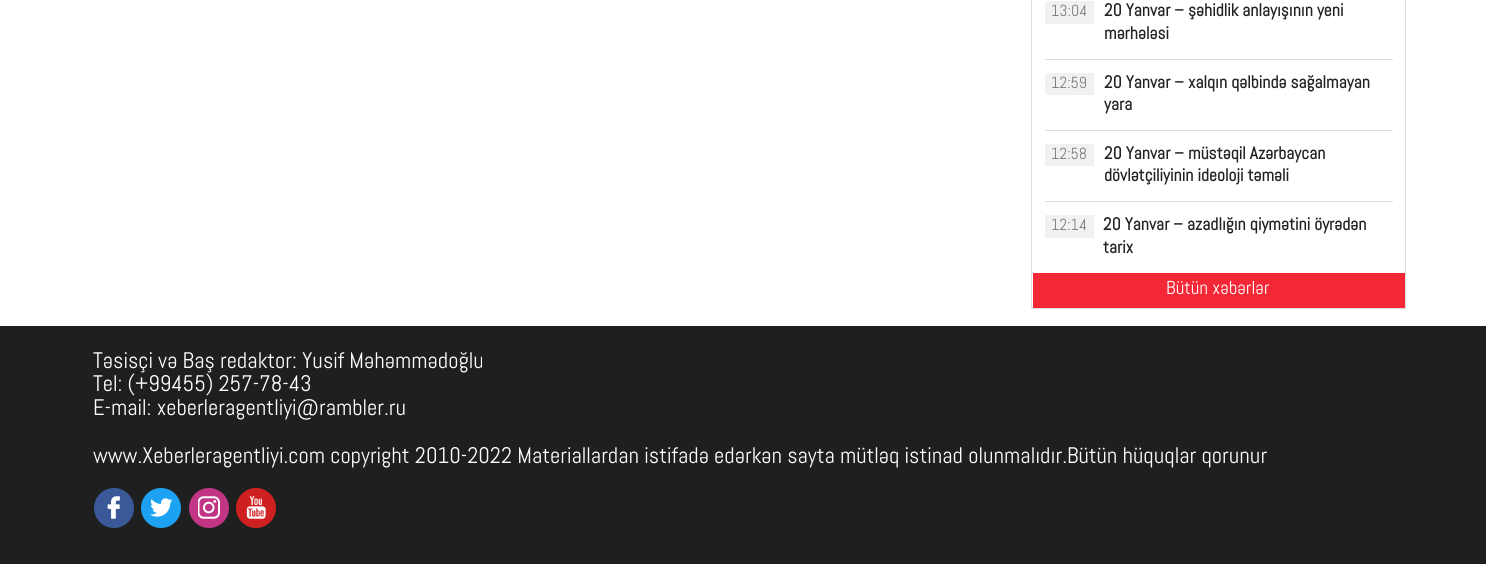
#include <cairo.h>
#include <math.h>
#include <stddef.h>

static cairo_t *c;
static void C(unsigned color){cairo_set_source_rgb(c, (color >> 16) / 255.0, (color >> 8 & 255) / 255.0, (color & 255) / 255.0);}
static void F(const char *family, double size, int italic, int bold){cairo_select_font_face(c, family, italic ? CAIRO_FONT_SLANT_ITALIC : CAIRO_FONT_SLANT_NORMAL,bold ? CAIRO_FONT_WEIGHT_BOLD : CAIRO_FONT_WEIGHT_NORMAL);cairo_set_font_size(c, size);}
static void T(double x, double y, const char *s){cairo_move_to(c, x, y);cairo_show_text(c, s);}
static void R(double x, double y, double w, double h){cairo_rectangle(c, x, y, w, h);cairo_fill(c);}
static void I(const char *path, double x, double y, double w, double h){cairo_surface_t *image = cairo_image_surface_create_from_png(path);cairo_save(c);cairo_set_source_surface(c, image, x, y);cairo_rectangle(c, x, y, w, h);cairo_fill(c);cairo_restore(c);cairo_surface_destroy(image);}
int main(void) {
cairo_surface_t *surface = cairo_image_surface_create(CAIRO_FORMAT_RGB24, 1486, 564);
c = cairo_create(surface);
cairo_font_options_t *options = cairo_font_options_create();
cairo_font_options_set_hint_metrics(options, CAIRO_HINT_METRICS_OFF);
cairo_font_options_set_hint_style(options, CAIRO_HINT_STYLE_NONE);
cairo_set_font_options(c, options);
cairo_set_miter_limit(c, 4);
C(0xffffff);
cairo_paint(c);
C(0xdddddd);
R(1405,0,1,309);
R(1031,308,375,1);
R(1031,0,1,309);
R(1045,59,348,1);
C(0xf1f1f1);
R(1045,1,49,23);
F("Abel",16,0,0);
C(0x808080);
T(1051,16,"13:04");
F("Abel",17.5,0,1);
C(0x222222);
T(1104,16,"20 Yanvar – şəhidlik anlayışının yeni");
T(1104,39,"mərhələsi");
C(0xdddddd);
R(1045,130,348,1);
C(0xf1f1f1);
R(1045,73,49,22);
F("Abel",16,0,0);
C(0x808080);
T(1051,88,"12:59");
F("Abel",17.5,0,1);
C(0x222222);
T(1104,88,"20 Yanvar – xalqın qəlbində sağalmayan");
T(1104,110,"yara");
C(0xdddddd);
R(1045,201,348,1);
C(0xf1f1f1);
R(1045,144,49,22);
F("Abel",16,0,0);
C(0x808080);
T(1051,159,"12:58");
F("Abel",17.5,0,1);
C(0x222222);
T(1104,159,"20 Yanvar – müstəqil Azərbaycan");
T(1104,181,"dövlətçiliyinin ideoloji təməli");
C(0xf1f1f1);
R(1045,215,49,23);
F("Abel",16,0,0);
C(0x808080);
T(1051,230,"12:14");
F("Abel",17.5,0,1);
C(0x222222);
T(1103,230,"20 Yanvar – azadlığın qiymətini öyrədən");
T(1103,253,"tarix");
C(0xf32735);
R(1033,273,372,35);
F("Abel",18.75,0,0);
C(0xffffff);
T(1166,294,"Bütün xəbərlər");
C(0x1f1f1f);
R(0,326,1486,238);
F("Abel",22.5,0,0);
C(0xffffff);
T(93,368,"Təsisçi və Baş redaktor: Yusif Məhəmmədoğlu");
T(93,391,"Tel: (+99455) 257-78-43");
T(93,415,"E-mail: xeberleragentliyi@rambler.ru");
T(93,463,"www.Xeberleragentliyi.com copyright 2010-2022 Materiallardan istifadə edərkən sayta mütləq istinad olunmalıdır.Bütün hüquqlar qorunur");
C(0x3b5998);
cairo_new_path(c);
cairo_arc(c,114,508,20,0,2 * M_PI);
cairo_fill(c);
I("1.png",107,496,13,23);
C(0x1da1f2);
cairo_arc(c,161,508,20,0,2 * M_PI);
cairo_fill(c);
I("2.png",150,498,23,19);
C(0xc13584);
cairo_arc(c,209,508,20,0,2 * M_PI);
cairo_fill(c);
I("3.png",198,496,22,23);
C(0xcd201f);
cairo_arc(c,256,508,20,0,2 * M_PI);
cairo_fill(c);
I("4.png",246,496,20,23);
cairo_surface_write_to_png(surface, "o.png");
cairo_font_options_destroy(options);
cairo_destroy(c);
cairo_surface_destroy(surface);
return 0;
}
